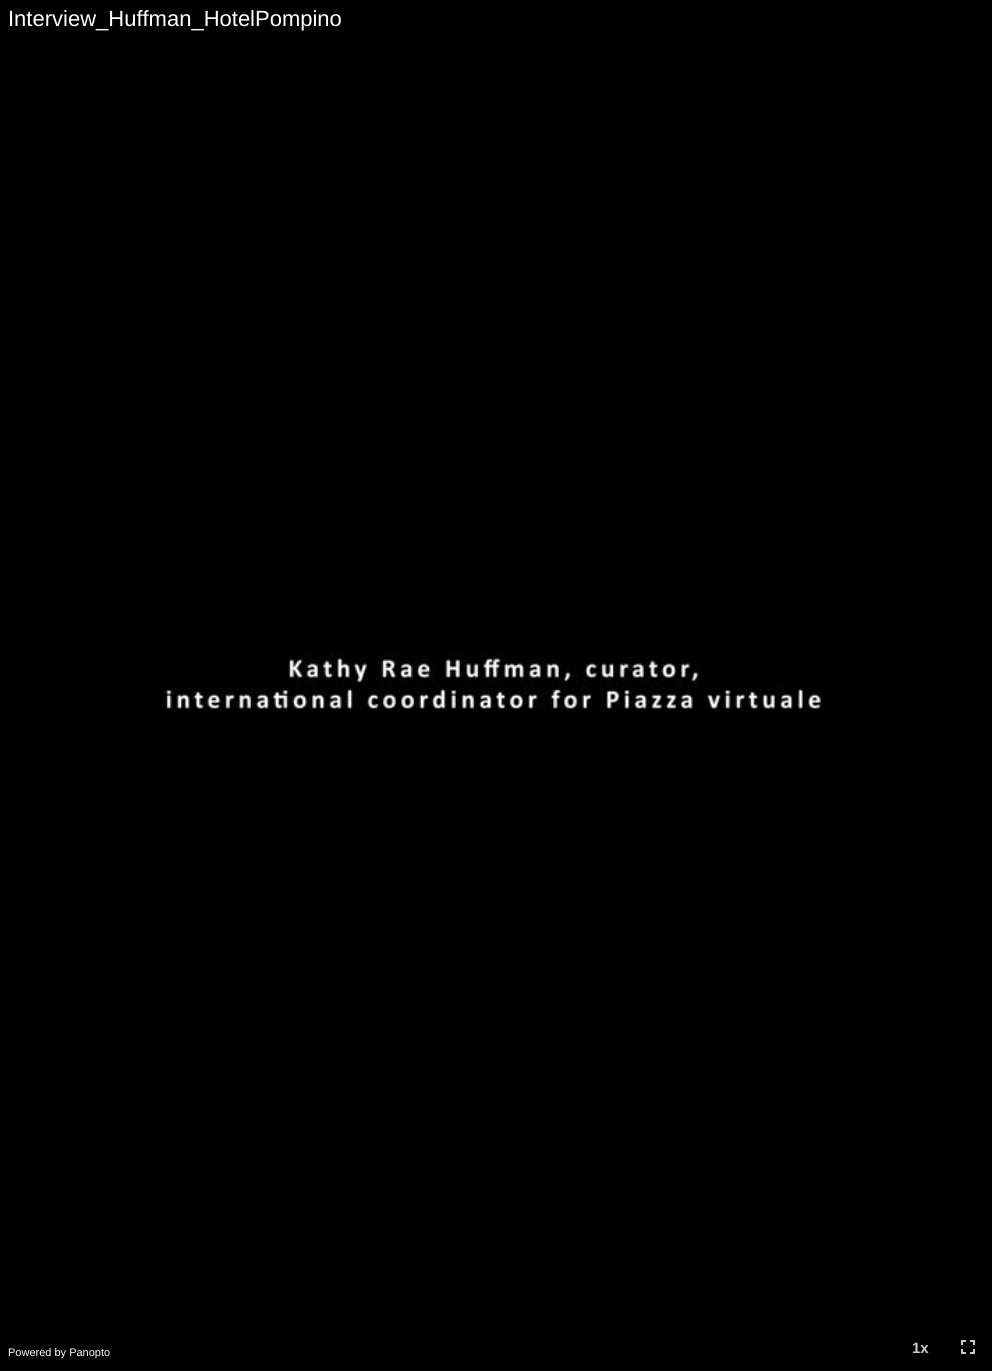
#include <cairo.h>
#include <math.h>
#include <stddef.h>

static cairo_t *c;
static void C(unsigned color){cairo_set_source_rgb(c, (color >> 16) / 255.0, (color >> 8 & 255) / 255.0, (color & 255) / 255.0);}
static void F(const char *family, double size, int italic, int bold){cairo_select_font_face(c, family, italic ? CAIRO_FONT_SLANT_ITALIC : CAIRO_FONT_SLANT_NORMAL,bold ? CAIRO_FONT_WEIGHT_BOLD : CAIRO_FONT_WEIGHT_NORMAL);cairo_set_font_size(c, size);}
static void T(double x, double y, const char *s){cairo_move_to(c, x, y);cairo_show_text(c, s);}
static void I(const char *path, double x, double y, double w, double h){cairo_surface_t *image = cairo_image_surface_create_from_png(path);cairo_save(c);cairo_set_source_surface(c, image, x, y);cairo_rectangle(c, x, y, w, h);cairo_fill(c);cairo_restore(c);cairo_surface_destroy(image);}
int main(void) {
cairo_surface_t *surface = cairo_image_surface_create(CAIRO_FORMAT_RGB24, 992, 1371);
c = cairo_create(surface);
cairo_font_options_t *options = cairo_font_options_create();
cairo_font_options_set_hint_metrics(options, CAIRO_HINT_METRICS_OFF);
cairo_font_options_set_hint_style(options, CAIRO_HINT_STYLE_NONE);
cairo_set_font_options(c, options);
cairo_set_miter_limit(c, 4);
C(0x000000);
cairo_paint(c);
F("Liberation Sans",22,0,0);
C(0xffffff);
T(8,26,"Interview_Huffman_HotelPompino");
I("1.png",162,653,662,56);
F("Liberation Sans",11,0,0);
T(8,1356,"Powered by Panopto");
F("Liberation Sans",15,0,1);
C(0xcccccc);
T(912,1353,"1x");
I("2.png",961,1340,14,14);
cairo_surface_write_to_png(surface, "o.png");
cairo_font_options_destroy(options);
cairo_destroy(c);
cairo_surface_destroy(surface);
return 0;
}
